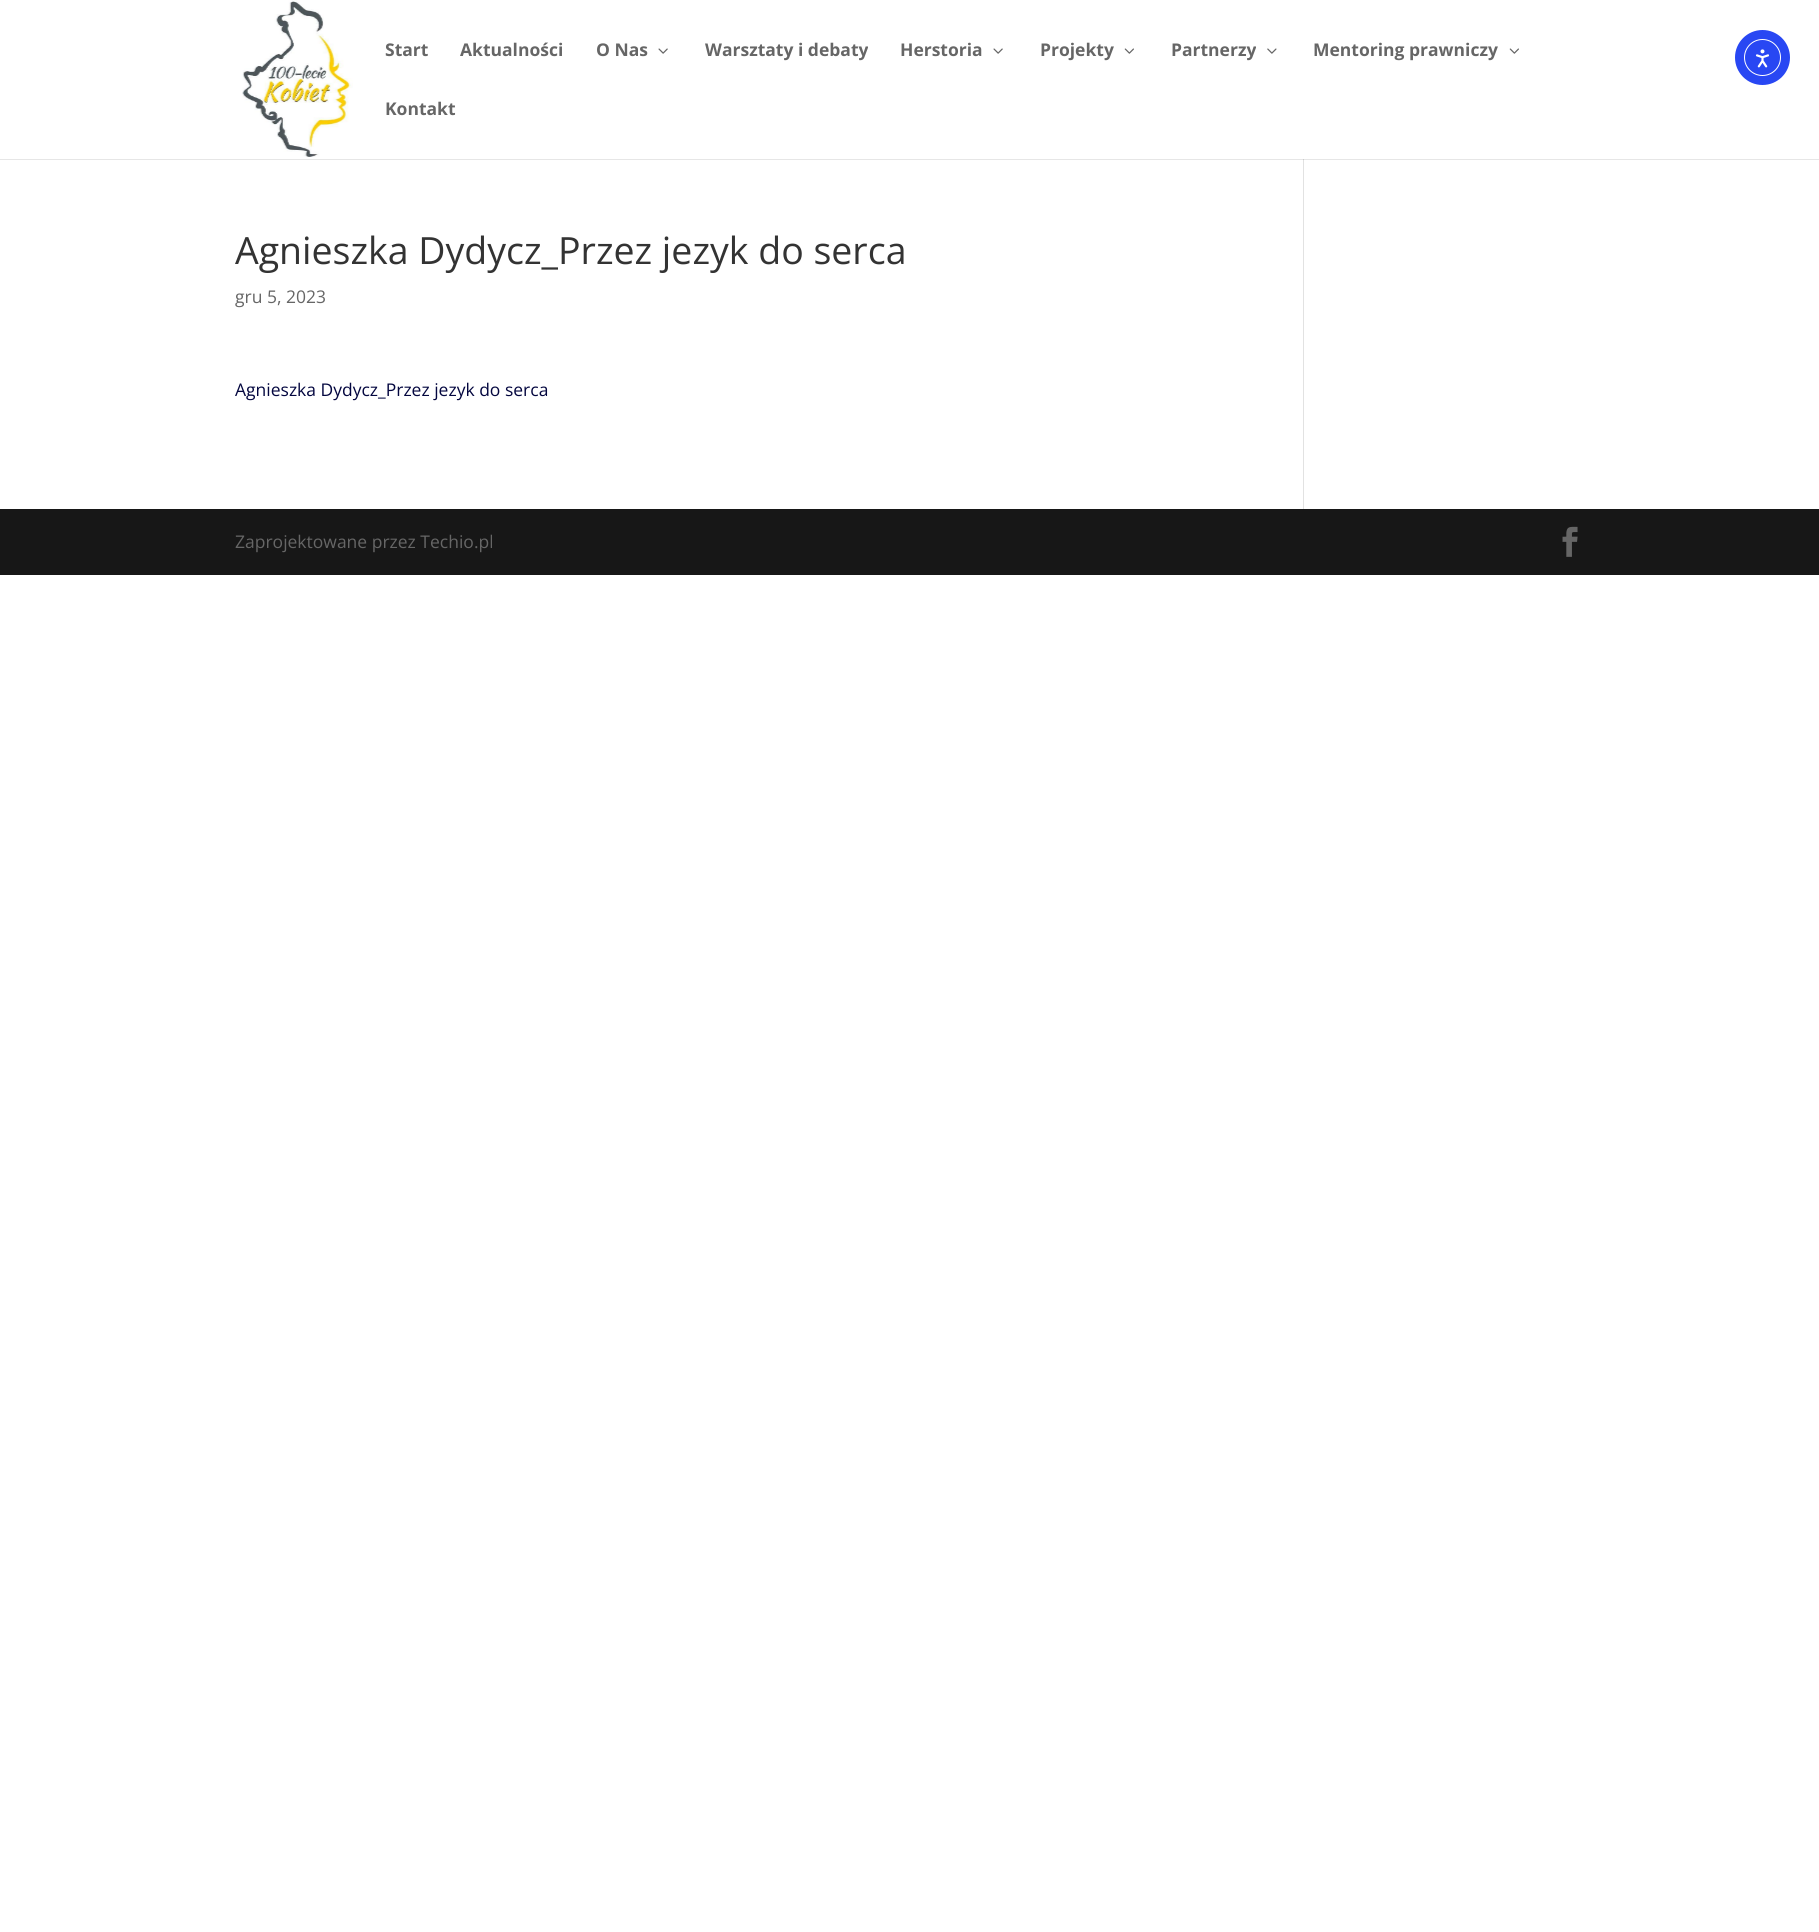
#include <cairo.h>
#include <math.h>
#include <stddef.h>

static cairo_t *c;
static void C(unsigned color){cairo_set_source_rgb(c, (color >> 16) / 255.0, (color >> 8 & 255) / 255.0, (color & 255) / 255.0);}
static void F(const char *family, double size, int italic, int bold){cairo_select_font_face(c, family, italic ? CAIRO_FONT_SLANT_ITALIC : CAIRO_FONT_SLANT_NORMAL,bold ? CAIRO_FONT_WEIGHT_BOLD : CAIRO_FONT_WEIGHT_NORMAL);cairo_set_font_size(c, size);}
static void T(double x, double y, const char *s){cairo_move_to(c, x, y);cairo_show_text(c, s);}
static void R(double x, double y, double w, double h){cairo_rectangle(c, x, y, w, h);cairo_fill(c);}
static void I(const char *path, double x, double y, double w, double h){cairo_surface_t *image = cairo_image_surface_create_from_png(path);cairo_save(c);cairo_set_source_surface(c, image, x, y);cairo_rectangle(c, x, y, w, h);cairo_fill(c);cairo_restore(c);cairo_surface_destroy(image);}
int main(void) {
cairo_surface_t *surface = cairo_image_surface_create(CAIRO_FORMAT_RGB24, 1819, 1932);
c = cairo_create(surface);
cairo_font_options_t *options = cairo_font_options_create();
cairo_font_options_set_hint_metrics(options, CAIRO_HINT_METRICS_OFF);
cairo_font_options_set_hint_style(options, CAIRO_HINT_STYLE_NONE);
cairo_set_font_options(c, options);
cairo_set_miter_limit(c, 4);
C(0xffffff);
cairo_paint(c);
C(0xe6e6e6);
R(0,159,1819,1);
I("1.png",242,0,111,157);
F("Open Sans",17.5,0,1);
C(0x666666);
T(385,56,"Start");
T(460,56,"Aktualności");
T(596,56,"O Nas");
I("2.png",658,48,10,6);
T(705,56,"Warsztaty i debaty");
T(900,56,"Herstoria");
I("2.png",993,48,10,6);
T(1040,56,"Projekty");
I("3.png",1124,48,10,6);
T(1171,56,"Partnerzy");
I("4.png",1267,48,10,6);
T(1313,56,"Mentoring prawniczy");
I("3.png",1509,48,10,6);
T(385,115,"Kontakt");
F("Open Sans",37.5,0,0);
C(0x333333);
T(235,264,"Agnieszka Dydycz_Przez jezyk do serca");
F("Open Sans",17.5,0,0);
C(0x666666);
T(235,303,"gru 5, 2023");
C(0x03063f);
T(235,396,"Agnieszka Dydycz_Przez jezyk do serca");
C(0xe2e2e2);
R(1303,159,1,350);
C(0xcbcbcb);
R(1303,159,1,1);
C(0x171717);
R(0,509,1819,66);
C(0x666666);
T(235,548,"Zaprojektowane przez Techio.pl");
I("5.png",1562,526,16,31);
C(0x2847f3);
cairo_arc(c,1762.5,57.5,27.5,0,2 * M_PI);
cairo_fill(c);
cairo_arc(c,1762.5,57.5,18,0,2 * M_PI);
C(0xffffff);
cairo_set_line_width(c,1);
cairo_stroke(c);
I("6.png",1755,49,14,19);
cairo_surface_write_to_png(surface, "o.png");
cairo_font_options_destroy(options);
cairo_destroy(c);
cairo_surface_destroy(surface);
return 0;
}
